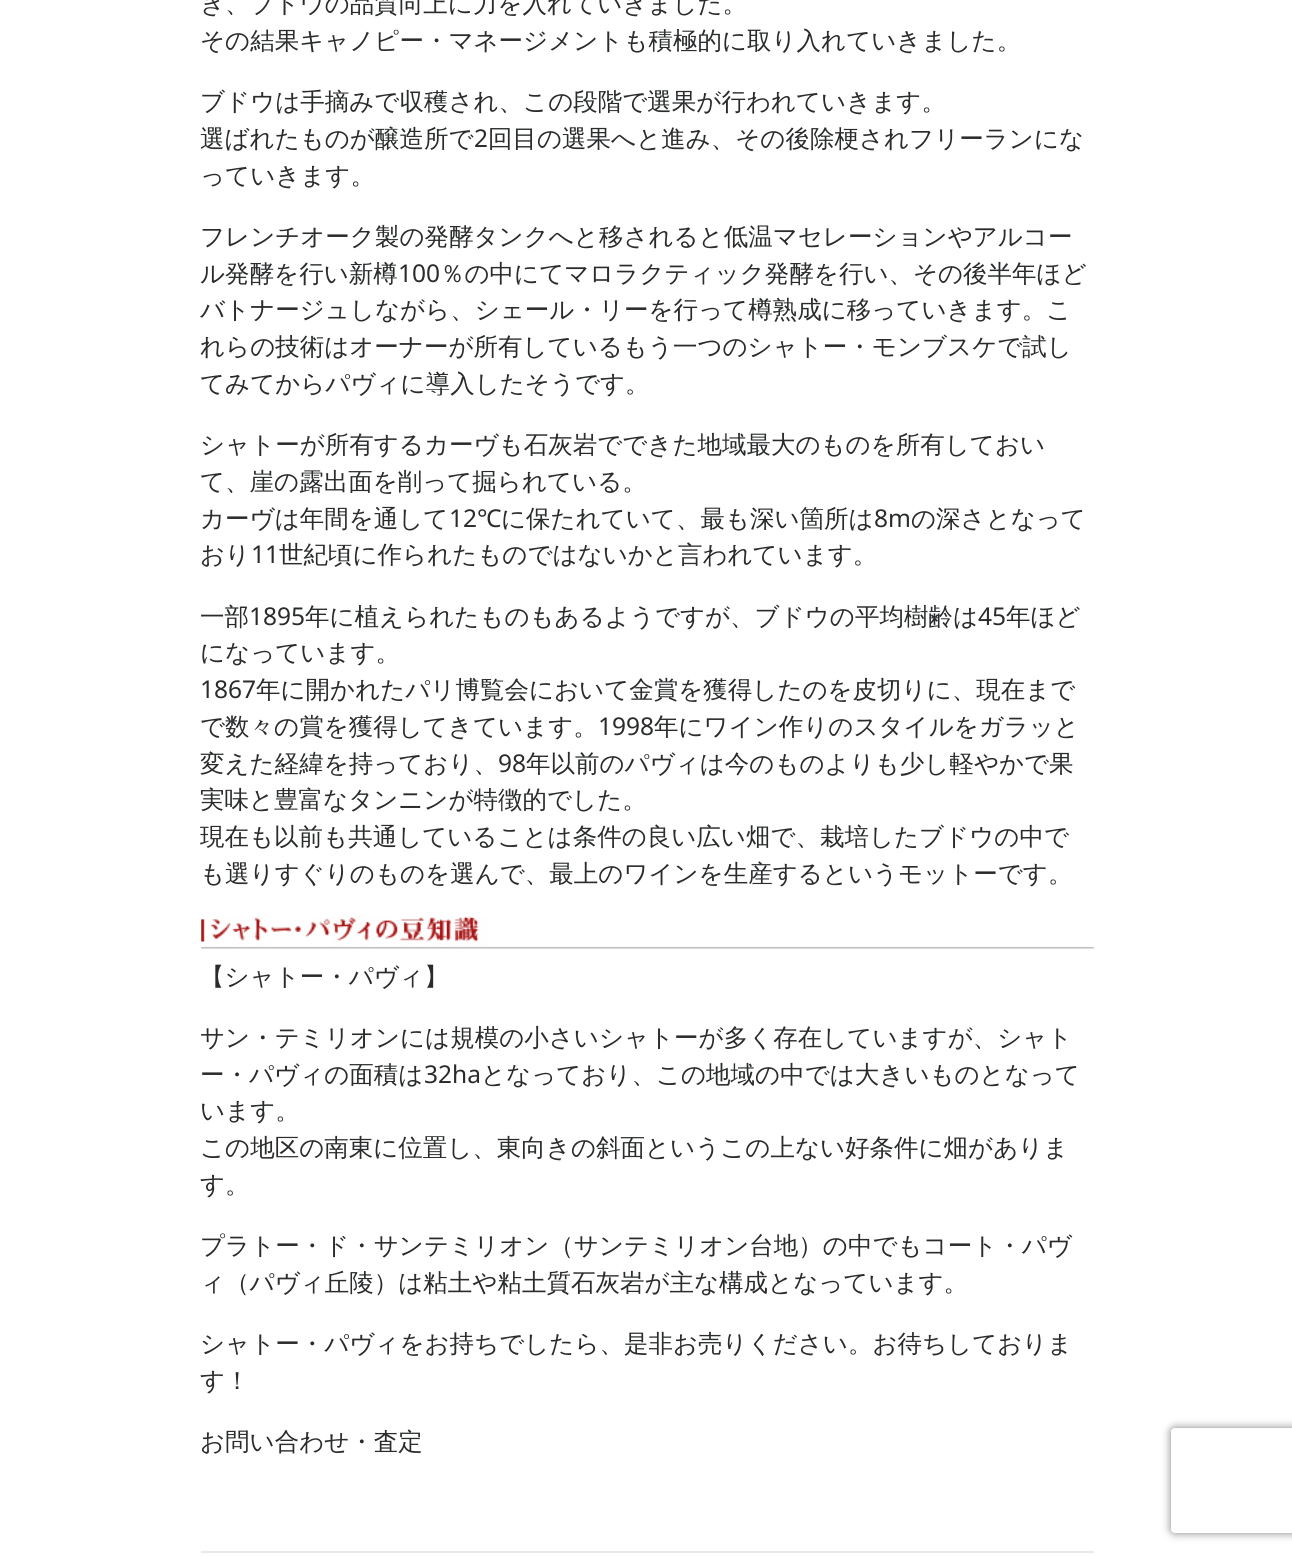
#include <cairo.h>
#include <math.h>
#include <stddef.h>

static cairo_t *c;
static void C(unsigned color){cairo_set_source_rgb(c, (color >> 16) / 255.0, (color >> 8 & 255) / 255.0, (color & 255) / 255.0);}
static void F(const char *family, double size, int italic, int bold){cairo_select_font_face(c, family, italic ? CAIRO_FONT_SLANT_ITALIC : CAIRO_FONT_SLANT_NORMAL,bold ? CAIRO_FONT_WEIGHT_BOLD : CAIRO_FONT_WEIGHT_NORMAL);cairo_set_font_size(c, size);}
static void T(double x, double y, const char *s){cairo_move_to(c, x, y);cairo_show_text(c, s);}
static void R(double x, double y, double w, double h){cairo_rectangle(c, x, y, w, h);cairo_fill(c);}
static void Q(double x, double y, double w, double h, double r){cairo_new_sub_path(c);cairo_arc(c, x + w - r, y + h - r, r, 0, M_PI / 2);cairo_arc(c, x + r, y + h - r, r, M_PI / 2, M_PI);cairo_arc(c, x + r, y + r, r, M_PI, 1.5 * M_PI);cairo_arc(c, x + w - r, y + r, r, 1.5 * M_PI, 2 * M_PI);cairo_close_path(c);}
static void S(double x, double y, double w, double h, double r, double blur, double alpha){cairo_push_group_with_content(c, CAIRO_CONTENT_ALPHA);cairo_set_operator(c, CAIRO_OPERATOR_SOURCE);for (int i = 15; i >= -15 && fmin(w, h) + blur * i / 3 > 0; i -= 2) {double e = blur * i / 6;cairo_set_source_rgba(c, 0, 0, 0, alpha * erfc((i - 1) / 8.5) / 2);Q(x - e, y - e, w + 2 * e, h + 2 * e, fmax(0, fmin(r + e + blur * .6, fmin(w, h) / 2 + e)));cairo_fill(c);}cairo_pattern_t *soft = cairo_pop_group(c);cairo_mask(c, soft);cairo_pattern_destroy(soft);}
static void I(const char *path, double x, double y, double w, double h){cairo_surface_t *image = cairo_image_surface_create_from_png(path);cairo_save(c);cairo_set_source_surface(c, image, x, y);cairo_rectangle(c, x, y, w, h);cairo_fill(c);cairo_restore(c);cairo_surface_destroy(image);}
int main(void) {
cairo_surface_t *surface = cairo_image_surface_create(CAIRO_FORMAT_RGB24, 1292, 1557);
c = cairo_create(surface);
cairo_font_options_t *options = cairo_font_options_create();
cairo_font_options_set_hint_metrics(options, CAIRO_HINT_METRICS_OFF);
cairo_font_options_set_hint_style(options, CAIRO_HINT_STYLE_NONE);
cairo_set_font_options(c, options);
cairo_set_miter_limit(c, 4);
C(0xffffff);
cairo_paint(c);
F("WenQuanYi Zen Hei Medium",24.5,0,0);
C(0x292b2c);
T(200,12,"き、ブドウの品質向上に力を入れていきました。");
T(200,49,"その結果キャノピー・マネージメントも積極的に取り入れていきました。");
T(200,110,"ブドウは手摘みで収穫され、この段階で選果が行われていきます。");
T(200,147,"選ばれたものが醸造所で");
F("Noto Sans",24.5,0,0);
T(474,147,"2");
F("WenQuanYi Zen Hei Medium",24.5,0,0);
T(488,147,"回目の選果へと進み、その後除梗されフリーランにな");
T(200,184,"っていきます。");
T(200,245,"フレンチオーク製の発酵タンクへと移されると低温マセレーションやアルコー");
T(200,282,"ル発酵を行い新樽");
F("Noto Sans",24.5,0,0);
T(398,282,"100");
F("WenQuanYi Zen Hei Medium",24.5,0,0);
T(440,282,"％の中にてマロラクティック発酵を行い、その後半年ほど");
T(200,318,"バトナージュしながら、シェール・リーを行って樽熟成に移っていきます。こ");
T(200,355,"れらの技術はオーナーが所有しているもう一つのシャトー・モンブスケで試し");
T(200,392,"てみてからパヴィに導入したそうです。");
T(200,453,"シャトーが所有するカーヴも石灰岩でできた地域最大のものを所有しておい");
T(200,490,"て、崖の露出面を削って掘られている。");
T(200,527,"カーヴは年間を通して");
F("Noto Sans",24.5,0,0);
T(449,527,"12℃");
F("WenQuanYi Zen Hei Medium",24.5,0,0);
T(501,527,"に保たれていて、最も深い箇所は");
F("Noto Sans",24.5,0,0);
T(874,527,"8m");
F("WenQuanYi Zen Hei Medium",24.5,0,0);
T(911,527,"の深さとなって");
T(200,563,"おり");
F("Noto Sans",24.5,0,0);
T(251,563,"11");
F("WenQuanYi Zen Hei Medium",24.5,0,0);
T(279,563,"世紀頃に作られたものではないかと言われています。");
T(200,625,"一部");
F("Noto Sans",24.5,0,0);
T(249,625,"1895");
F("WenQuanYi Zen Hei Medium",24.5,0,0);
T(305,625,"年に植えられたものもあるようですが、ブドウの平均樹齢は");
F("Noto Sans",24.5,0,0);
T(978,625,"45");
F("WenQuanYi Zen Hei Medium",24.5,0,0);
T(1006,625,"年ほど");
T(200,661,"になっています。");
F("Noto Sans",24.5,0,0);
T(200,698,"1867");
F("WenQuanYi Zen Hei Medium",24.5,0,0);
T(256,698,"年に開かれたパリ博覧会において金賞を獲得したのを皮切りに、現在まで");
T(200,735,"で数々の賞を獲得してきています。");
F("Noto Sans",24.5,0,0);
T(598,735,"1998");
F("WenQuanYi Zen Hei Medium",24.5,0,0);
T(654,735,"年にワイン作りのスタイルをガラッと");
T(200,772,"変えた経緯を持っており、");
F("Noto Sans",24.5,0,0);
T(498,772,"98");
F("WenQuanYi Zen Hei Medium",24.5,0,0);
T(526,772,"年以前のパヴィは今のものよりも少し軽やかで果");
T(200,808,"実味と豊富なタンニンが特徴的でした。");
T(200,845,"現在も以前も共通していることは条件の良い広い畑で、栽培したブドウの中で");
T(200,882,"も選りすぐりのものを選んで、最上のワインを生産するというモットーです。");
I("1.png",201,916,893,33);
T(200,985,"【シャトー・パヴィ】");
T(200,1046,"サン・テミリオンには規模の小さいシャトーが多く存在していますが、シャト");
T(200,1083,"ー・パヴィの面積は");
F("Noto Sans",24.5,0,0);
T(424,1083,"32ha");
F("WenQuanYi Zen Hei Medium",24.5,0,0);
T(481,1083,"となっており、この地域の中では大きいものとなって");
T(200,1119,"います。");
T(200,1156,"この地区の南東に位置し、東向きの斜面というこの上ない好条件に畑がありま");
T(200,1193,"す。");
T(200,1254,"プラトー・ド・サンテミリオン（サンテミリオン台地）の中でもコート・パヴ");
T(200,1291,"ィ（パヴィ丘陵）は粘土や粘土質石灰岩が主な構成となっています。");
T(200,1352,"シャトー・パヴィをお持ちでしたら、是非お売りください。お待ちしておりま");
T(200,1389,"す！");
T(200,1450,"お問い合わせ・査定");
C(0xe9e9e9);
R(201,1551,893,2);
cairo_save(c);
cairo_set_fill_rule(c,CAIRO_FILL_RULE_EVEN_ODD);
cairo_new_path(c);
cairo_move_to(c,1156,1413);
cairo_line_to(c,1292,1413);
cairo_line_to(c,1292,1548);
cairo_line_to(c,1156,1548);
cairo_close_path(c);
cairo_move_to(c,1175,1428);
cairo_line_to(c,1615,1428);
cairo_curve_to(c,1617,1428,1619,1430,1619,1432);
cairo_line_to(c,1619,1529);
cairo_curve_to(c,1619,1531,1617,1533,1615,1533);
cairo_line_to(c,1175,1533);
cairo_curve_to(c,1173,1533,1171,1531,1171,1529);
cairo_line_to(c,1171,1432);
cairo_curve_to(c,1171,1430,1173,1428,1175,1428);
cairo_close_path(c);
cairo_clip(c);
C(0x808080);
S(1171,1428,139,105,4,4.5,1);
cairo_restore(c);
cairo_surface_write_to_png(surface, "o.png");
cairo_font_options_destroy(options);
cairo_destroy(c);
cairo_surface_destroy(surface);
return 0;
}
